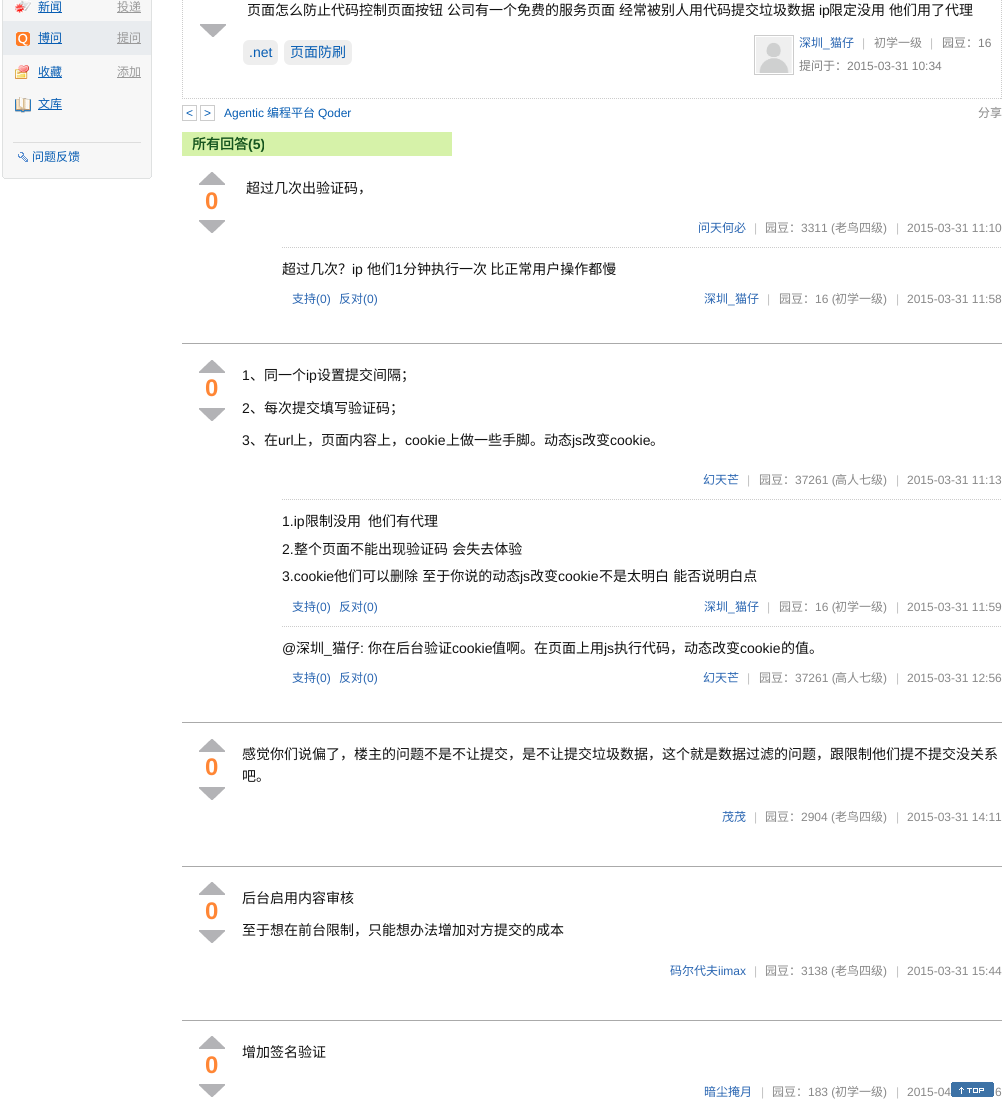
#include <cairo.h>
#include <math.h>
#include <stddef.h>

static cairo_t *c;
static void C(unsigned color){cairo_set_source_rgb(c, (color >> 16) / 255.0, (color >> 8 & 255) / 255.0, (color & 255) / 255.0);}
static void F(const char *family, double size, int italic, int bold){cairo_select_font_face(c, family, italic ? CAIRO_FONT_SLANT_ITALIC : CAIRO_FONT_SLANT_NORMAL,bold ? CAIRO_FONT_WEIGHT_BOLD : CAIRO_FONT_WEIGHT_NORMAL);cairo_set_font_size(c, size);}
static void T(double x, double y, const char *s){cairo_move_to(c, x, y);cairo_show_text(c, s);}
static void L(double x, double y, const char *s, double letter, double word){cairo_move_to(c, x, y);while (*s) {char ch[5] = {0};int n = 0;do ch[n++] = *s++; while ((*s & 0xC0) == 0x80);cairo_show_text(c, ch);cairo_rel_move_to(c, letter + word * (*ch == ' '), 0);}}
static void R(double x, double y, double w, double h){cairo_rectangle(c, x, y, w, h);cairo_fill(c);}
static void Q(double x, double y, double w, double h, double r){cairo_new_sub_path(c);cairo_arc(c, x + w - r, y + h - r, r, 0, M_PI / 2);cairo_arc(c, x + r, y + h - r, r, M_PI / 2, M_PI);cairo_arc(c, x + r, y + r, r, M_PI, 1.5 * M_PI);cairo_arc(c, x + w - r, y + r, r, 1.5 * M_PI, 2 * M_PI);cairo_close_path(c);}
static void I(const char *path, double x, double y, double w, double h){cairo_surface_t *image = cairo_image_surface_create_from_png(path);cairo_save(c);cairo_set_source_surface(c, image, x, y);cairo_rectangle(c, x, y, w, h);cairo_fill(c);cairo_restore(c);cairo_surface_destroy(image);}
int main(void) {
cairo_surface_t *surface = cairo_image_surface_create(CAIRO_FORMAT_RGB24, 1004, 1112);
c = cairo_create(surface);
cairo_font_options_t *options = cairo_font_options_create();
cairo_font_options_set_hint_metrics(options, CAIRO_HINT_METRICS_OFF);
cairo_font_options_set_hint_style(options, CAIRO_HINT_STYLE_NONE);
cairo_set_font_options(c, options);
cairo_set_miter_limit(c, 4);
C(0xffffff);
cairo_paint(c);
C(0xf7f7f7);
R(3,0,148,176);
C(0xdfe1e1);
R(151,0,1,176);
R(2,0,1,176);
I("1.png",15,0,16,13);
F("Noto Sans CJK SC",12,0,0);
C(0x075db3);
T(38,11,"新闻");
R(38,12,24,1);
C(0x999999);
T(117,11,"投递");
R(117,12,24,1);
C(0xe9ecef);
R(3,21,148,34);
I("2.png",16,32,14,14);
C(0x075db3);
T(38,42,"博问");
R(38,43,24,1);
C(0x999999);
T(117,42,"提问");
R(117,43,24,1);
I("3.png",15,65,14,14);
C(0x075db3);
T(38,76,"收藏");
R(38,77,24,1);
C(0x999999);
T(117,76,"添加");
R(117,77,24,1);
I("4.png",15,97,16,16);
C(0x075db3);
T(38,108,"文库");
R(38,109,24,1);
C(0xdddddd);
R(13,142,128,1);
I("5.png",18,152,10,10);
C(0x075db3);
T(32,161,"问题反馈");
C(0xf7f7f7);
R(2,176,150,1);
C(0xdbdee2);
R(151,176,1,1);
C(0xdfe1e1);
R(2,176,1,1);
C(0xf7f7f7);
R(3,177,148,1);
C(0xdfe1e1);
R(150,177,1,1);
R(3,177,1,1);
R(4,178,146,1);
cairo_new_path(c);
cairo_move_to(c,1001.5,-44);
cairo_line_to(c,1001.5,99);
C(0xcccccc);
cairo_set_line_width(c,1);
cairo_set_dash(c,(double[]){1,1},2,0);
cairo_stroke(c);
cairo_new_path(c);
cairo_move_to(c,182,98.5);
cairo_line_to(c,1002,98.5);
cairo_stroke(c);
cairo_new_path(c);
cairo_move_to(c,182.5,-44);
cairo_line_to(c,182.5,99);
cairo_stroke(c);
I("6.png",200,24,26,13);
F("Noto Sans CJK SC",14,0,0);
C(0x111111);
T(247,15,"页面怎么防止代码控制页面按钮");
T(447,15,"公司有一个免费的服务页面");
T(619,15,"经常被别人用代码提交垃圾数据");
F("Liberation Sans",14,0,0);
T(819,15,"ip");
F("Noto Sans CJK SC",14,0,0);
T(829,15,"限定没用");
T(889,15,"他们用了代理");
C(0xeeeeee);
Q(243,40,35,25,6);
cairo_fill(c);
F("Liberation Sans",14,0,0);
C(0x075db3);
T(249,57,".net");
C(0xeeeeee);
Q(284,40,68,25,6);
cairo_fill(c);
F("Noto Sans CJK SC",14,0,0);
C(0x075db3);
T(290,57,"页面防刷");
cairo_rectangle(c,754.5,35.5,39,39);
C(0xcccccc);
cairo_set_dash(c,NULL,0,0);
cairo_stroke(c);
I("7.png",756,37,36,36);
F("Noto Sans CJK SC",12,0,0);
C(0x2965b1);
T(799,47,"深圳");
T(830,47,"猫仔");
F("Liberation Sans",12,0,0);
C(0xc1c1c1);
T(862,47,"|");
F("Noto Sans CJK SC",12,0,0);
C(0x888888);
T(874,47,"初学一级");
F("Liberation Sans",12,0,0);
C(0xc1c1c1);
T(930,47,"|");
F("Noto Sans CJK SC",12,0,0);
C(0x808080);
T(942,47,"园豆：");
F("Liberation Sans",12,0,0);
T(978,47,"16");
C(0x2965b1);
T(823,47,"_");
F("Noto Sans CJK SC",12,0,0);
C(0x808080);
T(799,70,"提问于：");
F("Liberation Sans",12,0,0);
T(847,70,"2015-03-31 10:34");
cairo_rectangle(c,182.5,105.5,14,15);
C(0xcccccc);
cairo_stroke(c);
C(0x075db3);
T(186,117,"<");
cairo_rectangle(c,200.5,105.5,14,15);
C(0xcccccc);
cairo_stroke(c);
C(0x075db3);
T(204,117,">");
T(224,117,"Agentic");
F("Noto Sans CJK SC",12,0,0);
T(267,117,"编程平台");
F("Liberation Sans",12,0,0);
T(318,117,"Qoder");
F("Noto Sans CJK SC",12,0,0);
C(0x888888);
T(978,117,"分享");
C(0xd6f2a9);
R(182,132,270,24);
F("Noto Sans CJK SC",14,0,1);
C(0x15551e);
T(192,149,"所有回答");
F("Liberation Sans",14,0,1);
T(248,149,"(5)");
C(0xaaaaaa);
R(182,343,820,1);
I("8.png",199,172,26,13);
F("Liberation Sans",24,0,1);
C(0xff8635);
T(205,209,"0");
I("6.png",199,220,26,13);
F("Noto Sans CJK SC",14,0,0);
C(0x111111);
T(246,193,"超过几次出验证码，");
F("Noto Sans CJK SC",12,0,0);
C(0x2965b1);
T(698,232,"问天何必");
F("Liberation Sans",12,0,0);
C(0xc1c1c1);
T(754,232,"|");
F("Noto Sans CJK SC",12,0,0);
C(0x888888);
T(765,232,"园豆：");
F("Liberation Sans",12,0,0);
T(801,232,"3311 (");
F("Noto Sans CJK SC",12,0,0);
T(835,232,"老鸟四级");
F("Liberation Sans",12,0,0);
T(883,232,")");
C(0xc1c1c1);
T(896,232,"|");
C(0x888888);
T(907,232,"2015-03-31 11:10");
cairo_new_path(c);
cairo_move_to(c,282,247.5);
cairo_line_to(c,1002,247.5);
C(0xcccccc);
cairo_set_dash(c,(double[]){1,1},2,0);
cairo_stroke(c);
F("Noto Sans CJK SC",14,0,0);
C(0x111111);
T(282,274,"超过几次？");
F("Liberation Sans",14,0,0);
T(352,274,"ip");
F("Noto Sans CJK SC",14,0,0);
T(367,274,"他们");
F("Liberation Sans",14,0,0);
T(395,274,"1");
F("Noto Sans CJK SC",14,0,0);
T(403,274,"分钟执行一次 比正常用户操作都慢");
F("Noto Sans CJK SC",12,0,0);
C(0x2965b1);
T(292,303,"支持");
F("Liberation Sans",12,0,0);
T(316,303,"(0)");
F("Noto Sans CJK SC",12,0,0);
T(339,303,"反对");
F("Liberation Sans",12,0,0);
T(363,303,"(0)");
F("Noto Sans CJK SC",12,0,0);
T(704,303,"深圳");
T(735,303,"猫仔");
F("Liberation Sans",12,0,0);
C(0xc1c1c1);
T(767,303,"|");
F("Noto Sans CJK SC",12,0,0);
C(0x888888);
T(779,303,"园豆：");
F("Liberation Sans",12,0,0);
T(815,303,"16 (");
F("Noto Sans CJK SC",12,0,0);
T(835,303,"初学一级");
F("Liberation Sans",12,0,0);
T(883,303,")");
C(0xc1c1c1);
T(896,303,"|");
C(0x888888);
T(907,303,"2015-03-31 11:58");
C(0x2965b1);
T(728,303,"_");
C(0xaaaaaa);
R(182,722,820,1);
I("8.png",199,360,26,13);
F("Liberation Sans",24,0,1);
C(0xff8635);
T(205,396,"0");
I("6.png",199,408,26,13);
F("Liberation Sans",14,0,0);
C(0x111111);
T(242,380,"1");
F("Noto Sans CJK SC",14,0,0);
T(250,380,"、同一个");
F("Liberation Sans",14,0,0);
T(306,380,"ip");
F("Noto Sans CJK SC",14,0,0);
T(317,380,"设置提交间隔；");
F("Liberation Sans",14,0,0);
T(242,413,"2");
F("Noto Sans CJK SC",14,0,0);
T(250,413,"、每次提交填写验证码；");
F("Liberation Sans",14,0,0);
T(242,445,"3");
F("Noto Sans CJK SC",14,0,0);
T(250,445,"、在");
F("Liberation Sans",14,0,0);
T(278,445,"url");
F("Noto Sans CJK SC",14,0,0);
T(293,445,"上，页面内容上，");
F("Liberation Sans",14,0,0);
T(405,445,"cookie");
F("Noto Sans CJK SC",14,0,0);
T(446,445,"上做一些手脚。动态");
F("Liberation Sans",14,0,0);
T(572,445,"js");
F("Noto Sans CJK SC",14,0,0);
T(582,445,"改变");
F("Liberation Sans",14,0,0);
T(610,445,"cookie");
F("Noto Sans CJK SC",14,0,0);
T(650,445,"。");
F("Noto Sans CJK SC",12,0,0);
C(0x2965b1);
T(703,484,"幻天芒");
F("Liberation Sans",12,0,0);
C(0xc1c1c1);
T(747,484,"|");
F("Noto Sans CJK SC",12,0,0);
C(0x888888);
T(759,484,"园豆：");
F("Liberation Sans",12,0,0);
T(795,484,"37261 (");
F("Noto Sans CJK SC",12,0,0);
T(835,484,"高人七级");
F("Liberation Sans",12,0,0);
T(883,484,")");
C(0xc1c1c1);
T(896,484,"|");
C(0x888888);
T(907,484,"2015-03-31 11:13");
cairo_new_path(c);
cairo_move_to(c,282,499.5);
cairo_line_to(c,1002,499.5);
C(0xcccccc);
cairo_stroke(c);
F("Liberation Sans",14,0,0);
C(0x111111);
T(282,526,"1.ip");
F("Noto Sans CJK SC",14,0,0);
T(305,526,"限制没用");
T(368,526,"他们有代理");
F("Liberation Sans",14,0,0);
T(282,554,"2.");
F("Noto Sans CJK SC",14,0,0);
L(294,554,"整个页面不能出现验证码 会失去体验",0,1);
F("Liberation Sans",14,0,0);
T(282,581,"3.cookie");
F("Noto Sans CJK SC",14,0,0);
L(334,581,"他们可以删除 至于你说的动态",0,1);
F("Liberation Sans",14,0,0);
T(520,581,"js");
F("Noto Sans CJK SC",14,0,0);
T(530,581,"改变");
F("Liberation Sans",14,0,0);
T(558,581,"cookie");
F("Noto Sans CJK SC",14,0,0);
L(599,581,"不是太明白 能否说明白点",0,1);
F("Noto Sans CJK SC",12,0,0);
C(0x2965b1);
T(292,611,"支持");
F("Liberation Sans",12,0,0);
T(316,611,"(0)");
F("Noto Sans CJK SC",12,0,0);
T(339,611,"反对");
F("Liberation Sans",12,0,0);
T(363,611,"(0)");
F("Noto Sans CJK SC",12,0,0);
T(704,611,"深圳");
T(735,611,"猫仔");
F("Liberation Sans",12,0,0);
C(0xc1c1c1);
T(767,611,"|");
F("Noto Sans CJK SC",12,0,0);
C(0x888888);
T(779,611,"园豆：");
F("Liberation Sans",12,0,0);
T(815,611,"16 (");
F("Noto Sans CJK SC",12,0,0);
T(835,611,"初学一级");
F("Liberation Sans",12,0,0);
T(883,611,")");
C(0xc1c1c1);
T(896,611,"|");
C(0x888888);
T(907,611,"2015-03-31 11:59");
C(0x2965b1);
T(728,611,"_");
cairo_new_path(c);
cairo_move_to(c,282,626.5);
cairo_line_to(c,1002,626.5);
C(0xcccccc);
cairo_stroke(c);
F("Liberation Sans",14,0,0);
C(0x111111);
T(282,653,"@");
F("Noto Sans CJK SC",14,0,0);
T(296,653,"深圳");
F("Liberation Sans",14,0,0);
T(324,653,"_");
F("Noto Sans CJK SC",14,0,0);
T(332,653,"猫仔");
F("Liberation Sans",14,0,0);
T(360,653,":");
F("Noto Sans CJK SC",14,0,0);
T(368,653,"你在后台验证");
F("Liberation Sans",14,0,0);
T(452,653,"cookie");
F("Noto Sans CJK SC",14,0,0);
T(492,653,"值啊。在页面上用");
F("Liberation Sans",14,0,0);
T(604,653,"js");
F("Noto Sans CJK SC",14,0,0);
T(614,653,"执行代码，动态改变");
F("Liberation Sans",14,0,0);
T(740,653,"cookie");
F("Noto Sans CJK SC",14,0,0);
T(781,653,"的值。");
F("Noto Sans CJK SC",12,0,0);
C(0x2965b1);
T(292,682,"支持");
F("Liberation Sans",12,0,0);
T(316,682,"(0)");
F("Noto Sans CJK SC",12,0,0);
T(339,682,"反对");
F("Liberation Sans",12,0,0);
T(363,682,"(0)");
F("Noto Sans CJK SC",12,0,0);
T(703,682,"幻天芒");
F("Liberation Sans",12,0,0);
C(0xc1c1c1);
T(747,682,"|");
F("Noto Sans CJK SC",12,0,0);
C(0x888888);
T(759,682,"园豆：");
F("Liberation Sans",12,0,0);
T(795,682,"37261 (");
F("Noto Sans CJK SC",12,0,0);
T(835,682,"高人七级");
F("Liberation Sans",12,0,0);
T(883,682,")");
C(0xc1c1c1);
T(896,682,"|");
C(0x888888);
T(907,682,"2015-03-31 12:56");
C(0xaaaaaa);
R(182,866,820,1);
I("8.png",199,739,26,13);
F("Liberation Sans",24,0,1);
C(0xff8635);
T(205,775,"0");
I("6.png",199,787,26,13);
F("Noto Sans CJK SC",14,0,0);
C(0x111111);
T(242,759,"感觉你们说偏了，楼主的问题不是不让提交，是不让提交垃圾数据，这个就是数据过滤的问题，跟限制他们提不提交没关系");
T(242,781,"吧。");
F("Noto Sans CJK SC",12,0,0);
C(0x2965b1);
T(722,821,"茂茂");
F("Liberation Sans",12,0,0);
C(0xc1c1c1);
T(754,821,"|");
F("Noto Sans CJK SC",12,0,0);
C(0x888888);
T(765,821,"园豆：");
F("Liberation Sans",12,0,0);
T(801,821,"2904 (");
F("Noto Sans CJK SC",12,0,0);
T(835,821,"老鸟四级");
F("Liberation Sans",12,0,0);
T(883,821,")");
C(0xc1c1c1);
T(896,821,"|");
C(0x888888);
T(907,821,"2015-03-31 14:11");
C(0xaaaaaa);
R(182,1020,820,1);
I("8.png",199,882,26,13);
F("Liberation Sans",24,0,1);
C(0xff8635);
T(205,919,"0");
I("6.png",199,930,26,13);
F("Noto Sans CJK SC",14,0,0);
C(0x111111);
T(242,903,"后台启用内容审核");
T(242,935,"至于想在前台限制，只能想办法增加对方提交的成本");
F("Noto Sans CJK SC",12,0,0);
C(0x2965b1);
T(670,975,"码尔代夫");
F("Liberation Sans",12,0,0);
T(718,975,"iimax");
C(0xc1c1c1);
T(754,975,"|");
F("Noto Sans CJK SC",12,0,0);
C(0x888888);
T(765,975,"园豆：");
F("Liberation Sans",12,0,0);
T(801,975,"3138 (");
F("Noto Sans CJK SC",12,0,0);
T(835,975,"老鸟四级");
F("Liberation Sans",12,0,0);
T(883,975,")");
C(0xc1c1c1);
T(896,975,"|");
C(0x888888);
T(907,975,"2015-03-31 15:44");
I("8.png",199,1036,26,13);
F("Liberation Sans",24,0,1);
C(0xff8635);
T(205,1073,"0");
I("6.png",199,1084,26,13);
F("Noto Sans CJK SC",14,0,0);
C(0x111111);
T(242,1057,"增加签名验证");
F("Noto Sans CJK SC",12,0,0);
C(0x2965b1);
T(704,1096,"暗尘掩月");
F("Liberation Sans",12,0,0);
C(0xc1c1c1);
T(761,1096,"|");
F("Noto Sans CJK SC",12,0,0);
C(0x888888);
T(772,1096,"园豆：");
F("Liberation Sans",12,0,0);
T(808,1096,"183 (");
F("Noto Sans CJK SC",12,0,0);
T(835,1096,"初学一级");
F("Liberation Sans",12,0,0);
T(883,1096,")");
C(0xc1c1c1);
T(896,1096,"|");
C(0x888888);
T(907,1096,"2015-04");
T(995,1096,"6");
I("9.png",951,1082,43,15);
cairo_surface_write_to_png(surface, "o.png");
cairo_font_options_destroy(options);
cairo_destroy(c);
cairo_surface_destroy(surface);
return 0;
}
